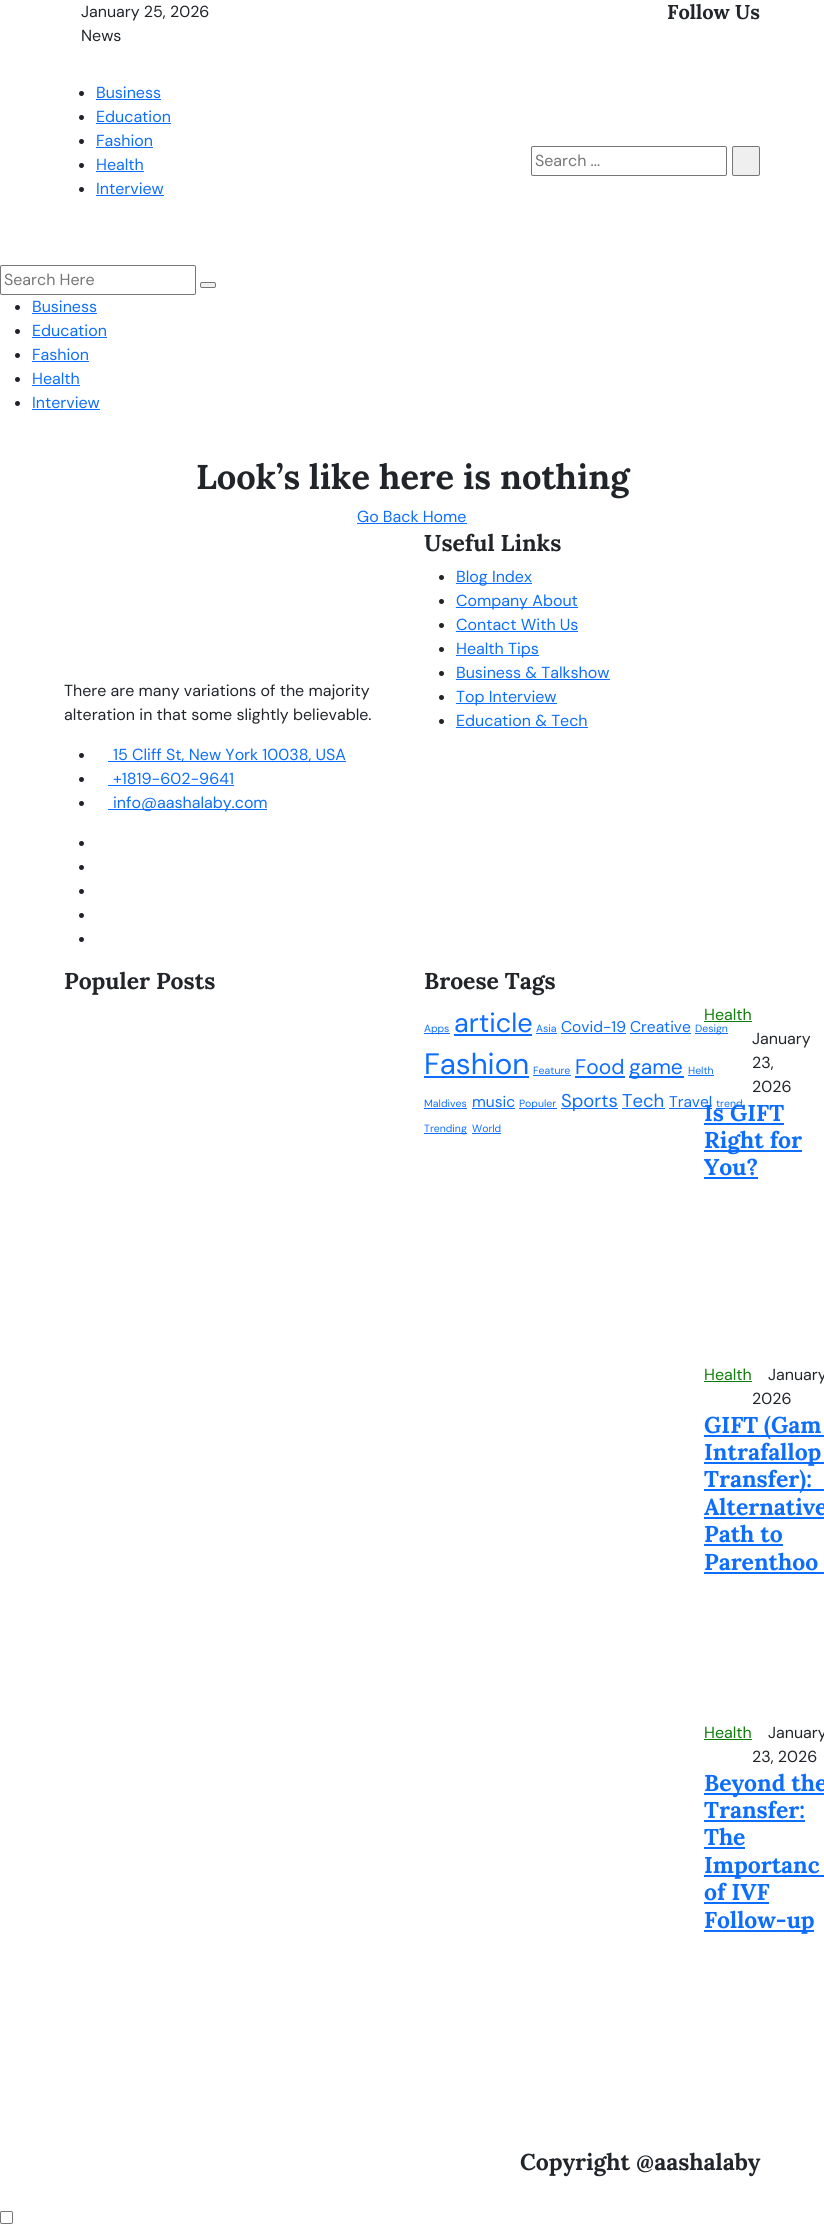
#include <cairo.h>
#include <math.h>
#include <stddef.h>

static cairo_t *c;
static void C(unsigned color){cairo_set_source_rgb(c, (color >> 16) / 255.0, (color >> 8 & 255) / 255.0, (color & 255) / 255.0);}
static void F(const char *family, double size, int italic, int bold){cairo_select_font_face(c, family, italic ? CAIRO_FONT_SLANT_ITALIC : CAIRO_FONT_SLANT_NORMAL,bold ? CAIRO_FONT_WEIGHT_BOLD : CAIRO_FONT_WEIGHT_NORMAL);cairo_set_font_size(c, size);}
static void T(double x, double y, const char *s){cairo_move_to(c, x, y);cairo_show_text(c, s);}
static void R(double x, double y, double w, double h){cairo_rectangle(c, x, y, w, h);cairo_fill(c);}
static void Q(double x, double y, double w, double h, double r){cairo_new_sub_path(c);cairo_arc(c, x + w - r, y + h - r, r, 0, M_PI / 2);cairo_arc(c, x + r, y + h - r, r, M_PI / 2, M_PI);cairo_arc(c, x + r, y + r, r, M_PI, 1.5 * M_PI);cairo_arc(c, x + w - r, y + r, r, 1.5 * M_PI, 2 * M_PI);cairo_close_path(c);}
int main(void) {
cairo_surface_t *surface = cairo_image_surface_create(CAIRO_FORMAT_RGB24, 824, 2234);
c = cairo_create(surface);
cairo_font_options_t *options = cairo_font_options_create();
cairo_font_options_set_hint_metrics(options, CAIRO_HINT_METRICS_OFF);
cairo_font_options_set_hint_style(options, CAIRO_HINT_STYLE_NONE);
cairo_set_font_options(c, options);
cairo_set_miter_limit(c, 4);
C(0xffffff);
cairo_paint(c);
F("DM Sans",16,0,0);
C(0x212529);
T(81,17,"January 25, 2026");
T(81,41,"News");
F("Lora",20,0,1);
T(667,19,"Follow Us");
cairo_new_path(c);
cairo_arc(c,81.5,93.5,2.5,0,2 * M_PI);
cairo_fill(c);
F("DM Sans",16,0,0);
C(0x0d6efd);
T(96,98,"Business");
R(96,99,65,1);
C(0x212529);
cairo_new_path(c);
cairo_arc(c,81.5,117.5,2.5,0,2 * M_PI);
cairo_fill(c);
C(0x0d6efd);
T(96,122,"Education");
R(96,123,75,1);
C(0x212529);
cairo_new_path(c);
cairo_arc(c,81.5,141.5,2.5,0,2 * M_PI);
cairo_fill(c);
C(0x0d6efd);
T(96,146,"Fashion");
R(96,147,57,1);
C(0x212529);
cairo_new_path(c);
cairo_arc(c,81.5,165.5,2.5,0,2 * M_PI);
cairo_fill(c);
C(0x0d6efd);
T(96,170,"Health");
R(96,171,48,1);
C(0x212529);
cairo_new_path(c);
cairo_arc(c,81.5,189.5,2.5,0,2 * M_PI);
cairo_fill(c);
C(0x0d6efd);
T(96,194,"Interview");
R(96,195,68,1);
Q(531.5,146.5,195,29,1.5);
C(0x767676);
cairo_set_line_width(c,1);
cairo_stroke(c);
C(0x757575);
T(535,166,"Search ...");
C(0xefefef);
Q(732.5,146.5,27,29,1.5);
cairo_fill_preserve(c);
C(0x767676);
cairo_stroke(c);
Q(.5,265.5,195,29,1.5);
cairo_stroke(c);
C(0x757575);
T(4,285,"Search Here");
C(0xefefef);
Q(200.5,282.5,15,5,1.5);
cairo_fill_preserve(c);
C(0x767676);
cairo_stroke(c);
C(0x212529);
cairo_arc(c,17.5,307.5,2.5,0,2 * M_PI);
cairo_fill(c);
C(0x0d6efd);
T(32,312,"Business");
R(32,313,65,1);
C(0x212529);
cairo_new_path(c);
cairo_arc(c,17.5,331.5,2.5,0,2 * M_PI);
cairo_fill(c);
C(0x0d6efd);
T(32,336,"Education");
R(32,337,75,1);
C(0x212529);
cairo_new_path(c);
cairo_arc(c,17.5,355.5,2.5,0,2 * M_PI);
cairo_fill(c);
C(0x0d6efd);
T(32,360,"Fashion");
R(32,361,57,1);
C(0x212529);
cairo_new_path(c);
cairo_arc(c,17.5,379.5,2.5,0,2 * M_PI);
cairo_fill(c);
C(0x0d6efd);
T(32,384,"Health");
R(32,385,48,1);
C(0x212529);
cairo_new_path(c);
cairo_arc(c,17.5,403.5,2.5,0,2 * M_PI);
cairo_fill(c);
C(0x0d6efd);
T(32,408,"Interview");
R(32,409,68,1);
F("Lora",34.4,0,1);
C(0x212529);
T(196,489,"Look’s like here is nothing");
F("DM Sans",16,0,0);
C(0x0d6efd);
T(357,522,"Go Back Home");
R(357,523,110,1);
F("Lora",22.9,0,1);
C(0x212529);
T(424,551,"Useful Links");
cairo_new_path(c);
cairo_arc(c,441.5,577.5,2.5,0,2 * M_PI);
cairo_fill(c);
C(0x0d6efd);
R(456,583,76,1);
F("DM Sans",16,0,0);
T(456,582,"Blog Index");
C(0x212529);
cairo_new_path(c);
cairo_arc(c,441.5,601.5,2.5,0,2 * M_PI);
cairo_fill(c);
C(0x0d6efd);
R(456,607,122,1);
T(456,606,"Company About");
C(0x212529);
cairo_new_path(c);
cairo_arc(c,441.5,625.5,2.5,0,2 * M_PI);
cairo_fill(c);
C(0x0d6efd);
T(456,630,"Contact With Us");
R(456,631,122,1);
C(0x212529);
cairo_new_path(c);
cairo_arc(c,441.5,649.5,2.5,0,2 * M_PI);
cairo_fill(c);
C(0x0d6efd);
R(456,655,83,1);
T(456,654,"Health Tips");
C(0x212529);
cairo_new_path(c);
cairo_arc(c,441.5,673.5,2.5,0,2 * M_PI);
cairo_fill(c);
C(0x0d6efd);
T(456,678,"Business & Talkshow");
R(456,679,154,1);
C(0x212529);
cairo_new_path(c);
cairo_arc(c,441.5,697.5,2.5,0,2 * M_PI);
cairo_fill(c);
C(0x0d6efd);
R(456,703,101,1);
T(456,702,"Top Interview");
C(0x212529);
cairo_new_path(c);
cairo_arc(c,441.5,721.5,2.5,0,2 * M_PI);
cairo_fill(c);
C(0x0d6efd);
T(456,726,"Education & Tech");
R(456,727,132,1);
C(0x212529);
T(64,696,"There are many variations of the majority");
T(64,720,"alteration in that some slightly believable.");
cairo_new_path(c);
cairo_arc(c,81.5,755.5,2.5,0,2 * M_PI);
cairo_fill(c);
C(0x0d6efd);
R(108,761,238,1);
T(113,760,"15 Cliff St, New York 10038, USA");
C(0x212529);
cairo_new_path(c);
cairo_arc(c,81.5,779.5,2.5,0,2 * M_PI);
cairo_fill(c);
C(0x0d6efd);
T(113,784,"+1819-602-9641");
R(108,785,126,1);
C(0x212529);
cairo_new_path(c);
cairo_arc(c,81.5,803.5,2.5,0,2 * M_PI);
cairo_fill(c);
C(0x0d6efd);
R(108,809,159,1);
T(113,808,"info@aashalaby.com");
C(0x212529);
cairo_new_path(c);
cairo_arc(c,81.5,843.5,2.5,0,2 * M_PI);
cairo_fill(c);
cairo_arc(c,81.5,867.5,2.5,0,2 * M_PI);
cairo_fill(c);
cairo_arc(c,81.5,891.5,2.5,0,2 * M_PI);
cairo_fill(c);
cairo_arc(c,81.5,915.5,2.5,0,2 * M_PI);
cairo_fill(c);
cairo_arc(c,81.5,939.5,2.5,0,2 * M_PI);
cairo_fill(c);
F("Lora",22.9,0,1);
T(64,989,"Populer Posts");
F("DM Sans",16,0,0);
C(0x0e7c08);
T(704,1020,"Health");
R(704,1021,48,1);
C(0x212529);
T(752,1044,"January");
T(752,1068,"23,");
T(752,1092,"2026");
F("Lora",22.9,0,1);
C(0x0d6efd);
T(704,1121,"Is GIFT");
R(704,1123,80,2);
R(704,1150,98,2);
T(704,1148,"Right for");
T(704,1175,"You?");
R(704,1177,54,2);
F("DM Sans",16,0,0);
C(0x0e7c08);
T(704,1380,"Health");
R(704,1381,48,1);
C(0x212529);
T(768,1380,"January");
T(752,1404,"2026");
C(0x0d6efd);
R(704,1435,120,2);
F("Lora",22.9,0,1);
T(704,1433,"GIFT (Gam");
R(704,1462,120,2);
T(704,1460,"Intrafallop");
R(704,1489,120,2);
T(704,1487,"Transfer):");
T(704,1515,"Alternative");
R(704,1517,120,2);
T(704,1542,"Path to");
R(704,1544,79,2);
T(704,1570,"Parenthoo");
R(704,1572,120,2);
F("DM Sans",16,0,0);
C(0x0e7c08);
T(704,1738,"Health");
R(704,1739,48,1);
C(0x212529);
T(768,1738,"January");
T(752,1762,"23, 2026");
C(0x0d6efd);
R(704,1793,120,2);
F("Lora",22.9,0,1);
T(704,1791,"Beyond the");
T(704,1818,"Transfer:");
R(704,1820,101,2);
T(704,1845,"The");
R(704,1847,41,2);
R(704,1875,120,2);
T(704,1873,"Importanc");
T(704,1900,"of IVF");
R(704,1902,65,2);
R(704,1930,110,2);
T(704,1928,"Follow-up");
C(0x212529);
T(424,989,"Broese Tags");
C(0x0d6efd);
R(424,1033,26,1);
F("DM Sans",10.5,0,0);
T(424,1032,"Apps");
F("DM Sans",27,0,0);
T(454,1032,"article");
R(454,1034,78,2);
F("DM Sans",10.5,0,0);
T(536,1032,"Asia");
R(536,1033,21,1);
F("DM Sans",15.5,0,0);
T(561,1032,"Covid-19 Creative");
R(561,1033,65,1);
R(695,1033,33,1);
F("DM Sans",10.5,0,0);
T(695,1032,"Design");
R(630,1033,61,1);
F("DM Sans",29.5,0,0);
T(424,1074,"Fashion");
R(424,1076,105,2);
F("DM Sans",10.5,0,0);
T(533,1074,"Feature");
R(533,1075,38,1);
F("DM Sans",21,0,0);
T(575,1074,"Food");
R(575,1076,50,2);
R(629,1076,55,2);
T(629,1074,"game");
F("DM Sans",10.5,0,0);
T(688,1074,"Helth");
R(688,1075,26,1);
T(424,1107,"Maldives");
R(424,1108,43,1);
F("DM Sans",15.5,0,0);
T(472,1107,"music");
R(472,1108,43,1);
R(519,1108,38,1);
F("DM Sans",10.5,0,0);
T(519,1107,"Populer");
R(561,1108,57,1);
F("DM Sans",18.5,0,0);
T(561,1107,"Sports");
T(622,1107,"Tech");
R(622,1108,43,1);
F("DM Sans",15.5,0,0);
T(669,1107,"Travel");
R(669,1108,43,1);
F("DM Sans",10.5,0,0);
T(716,1107,"trend");
R(716,1108,27,1);
R(424,1133,43,1);
T(424,1132,"Trending");
T(472,1132,"World");
R(472,1133,29,1);
F("Lora",22.9,0,1);
C(0x212529);
T(520,2170,"Copyright @aashalaby");
Q(.5,2211.5,12,12,1.5);
C(0x767676);
cairo_stroke(c);
cairo_surface_write_to_png(surface, "o.png");
cairo_font_options_destroy(options);
cairo_destroy(c);
cairo_surface_destroy(surface);
return 0;
}
